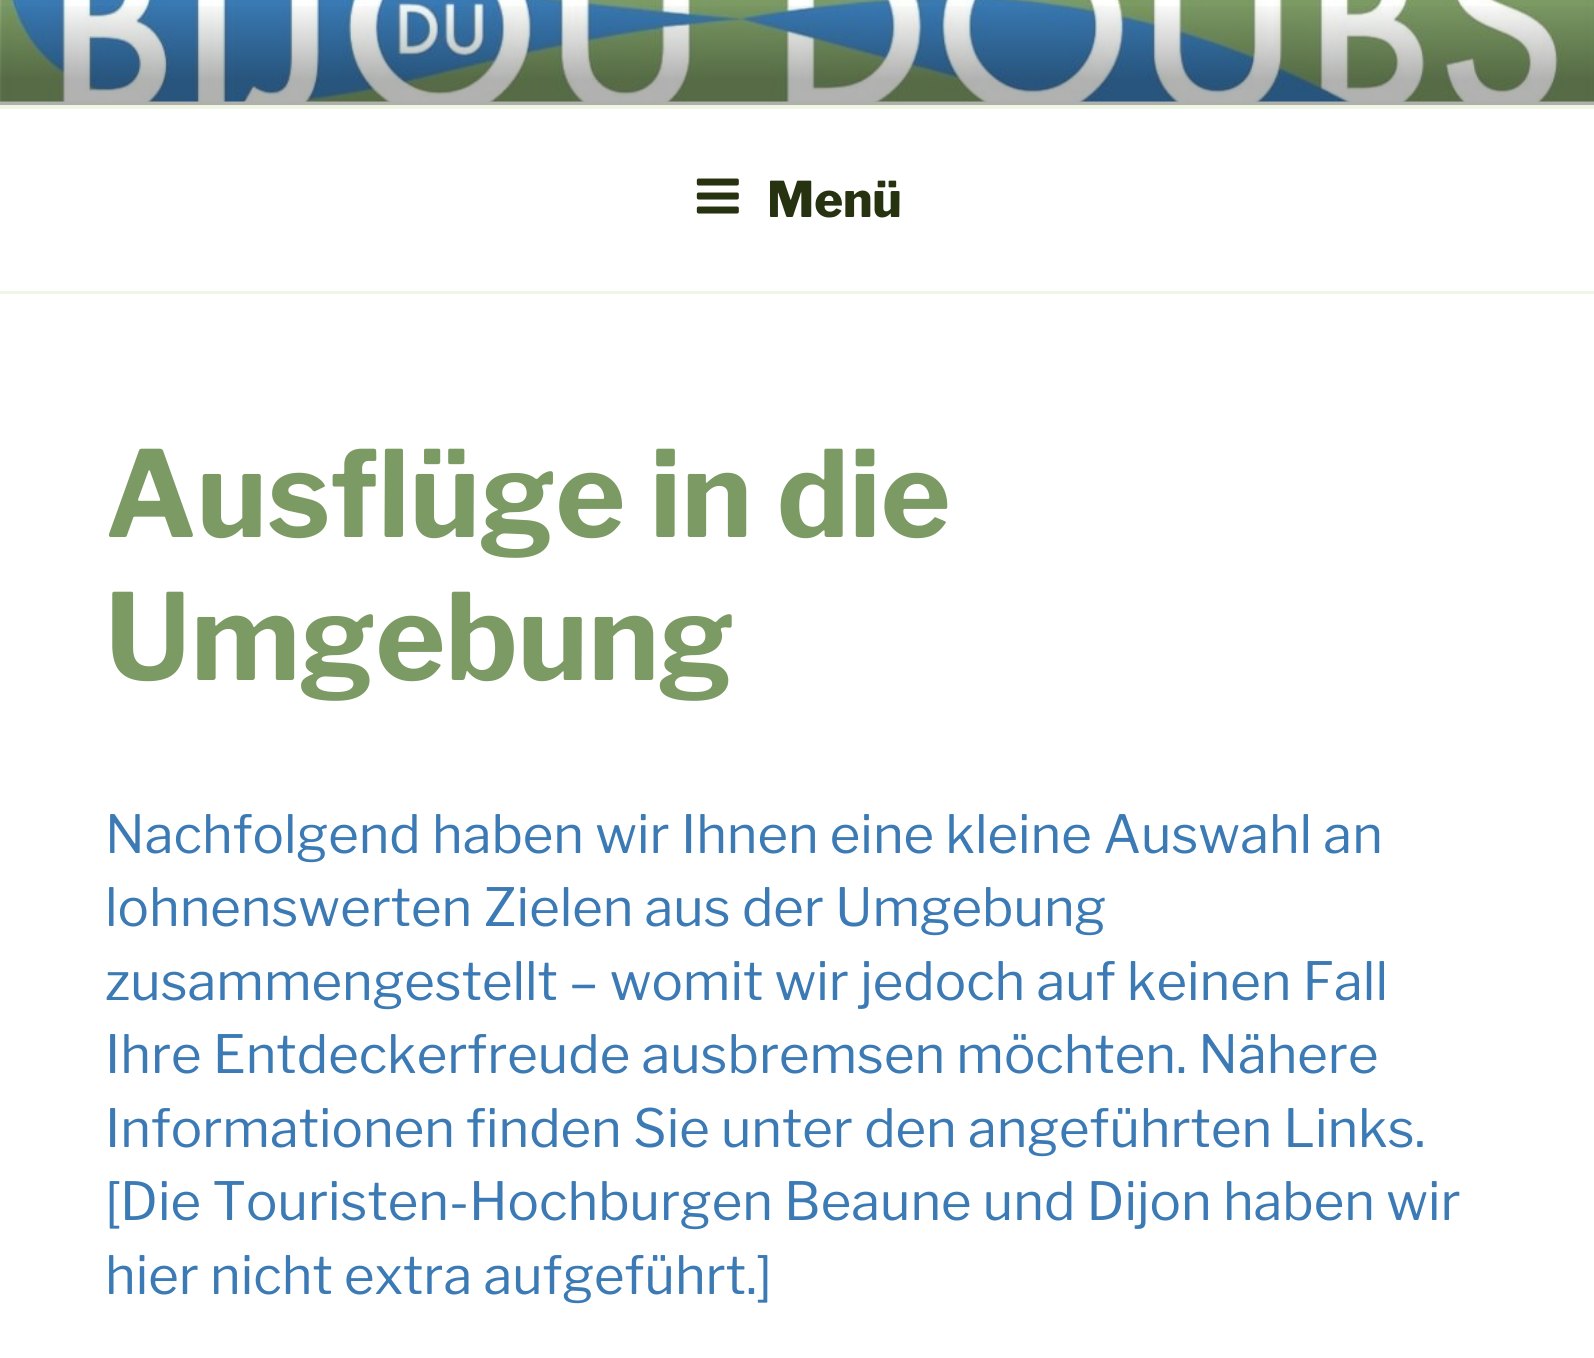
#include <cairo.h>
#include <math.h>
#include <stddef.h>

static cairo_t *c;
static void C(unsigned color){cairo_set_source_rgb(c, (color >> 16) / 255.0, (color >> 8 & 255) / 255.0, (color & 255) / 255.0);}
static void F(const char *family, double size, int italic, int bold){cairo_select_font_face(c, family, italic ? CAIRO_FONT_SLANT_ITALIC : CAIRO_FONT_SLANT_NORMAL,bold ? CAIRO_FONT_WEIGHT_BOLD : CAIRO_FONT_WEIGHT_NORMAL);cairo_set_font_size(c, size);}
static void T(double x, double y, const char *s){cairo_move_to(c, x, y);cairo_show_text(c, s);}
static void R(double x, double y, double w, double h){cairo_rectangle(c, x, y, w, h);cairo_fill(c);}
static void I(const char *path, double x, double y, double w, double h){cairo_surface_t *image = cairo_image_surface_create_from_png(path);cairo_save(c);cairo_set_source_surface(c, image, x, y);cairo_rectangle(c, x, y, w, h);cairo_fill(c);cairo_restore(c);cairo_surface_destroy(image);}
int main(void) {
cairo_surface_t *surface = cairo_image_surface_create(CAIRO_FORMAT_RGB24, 1594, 1358);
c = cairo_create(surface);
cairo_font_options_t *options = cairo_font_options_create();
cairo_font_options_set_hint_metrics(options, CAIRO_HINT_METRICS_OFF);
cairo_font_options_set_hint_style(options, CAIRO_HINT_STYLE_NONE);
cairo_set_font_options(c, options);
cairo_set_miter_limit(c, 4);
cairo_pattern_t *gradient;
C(0xfbfcf7);
cairo_paint(c);
I("1.png",0,0,1594,102);
gradient = cairo_pattern_create_linear(798,0,798,105);
cairo_pattern_add_color_stop_rgba(gradient,0,0,0,0,0);
cairo_pattern_add_color_stop_rgba(gradient,.75,0,0,0,.3);
cairo_pattern_add_color_stop_rgba(gradient,1,0,0,0,.3);
cairo_set_source(c,gradient);
cairo_pattern_destroy(gradient);
R(0,6,1594,99);
C(0xffffff);
R(0,109,1594,182);
C(0xf0f6e4);
R(0,105,1594,4);
R(0,291,1594,3);
I("2.png",696,178,43,36);
F("Libre Franklin Thin",49,0,0);
C(0x273211);
T(767,217,"Menü");
C(0xffffff);
R(0,294,1594,1064);
F("Libre Franklin",119,0,1);
C(0x7c9a64);
T(105,537,"Ausflüge in die");
T(105,680,"Umgebung");
F("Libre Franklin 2 Thin",52.5,0,0);
C(0x3b7ab4);
T(105,853,"Nachfolgend haben wir Ihnen eine kleine Auswahl an");
T(105,926,"lohnenswerten Zielen aus der Umgebung");
T(105,1000,"zusammengestellt – womit wir jedoch auf keinen Fall");
T(105,1073,"Ihre Entdeckerfreude ausbremsen möchten. Nähere");
T(105,1147,"Informationen finden Sie unter den angeführten Links.");
T(105,1220,"[Die Touristen-Hochburgen Beaune und Dijon haben wir");
T(105,1294,"hier nicht extra aufgeführt.]");
cairo_surface_write_to_png(surface, "o.png");
cairo_font_options_destroy(options);
cairo_destroy(c);
cairo_surface_destroy(surface);
return 0;
}
